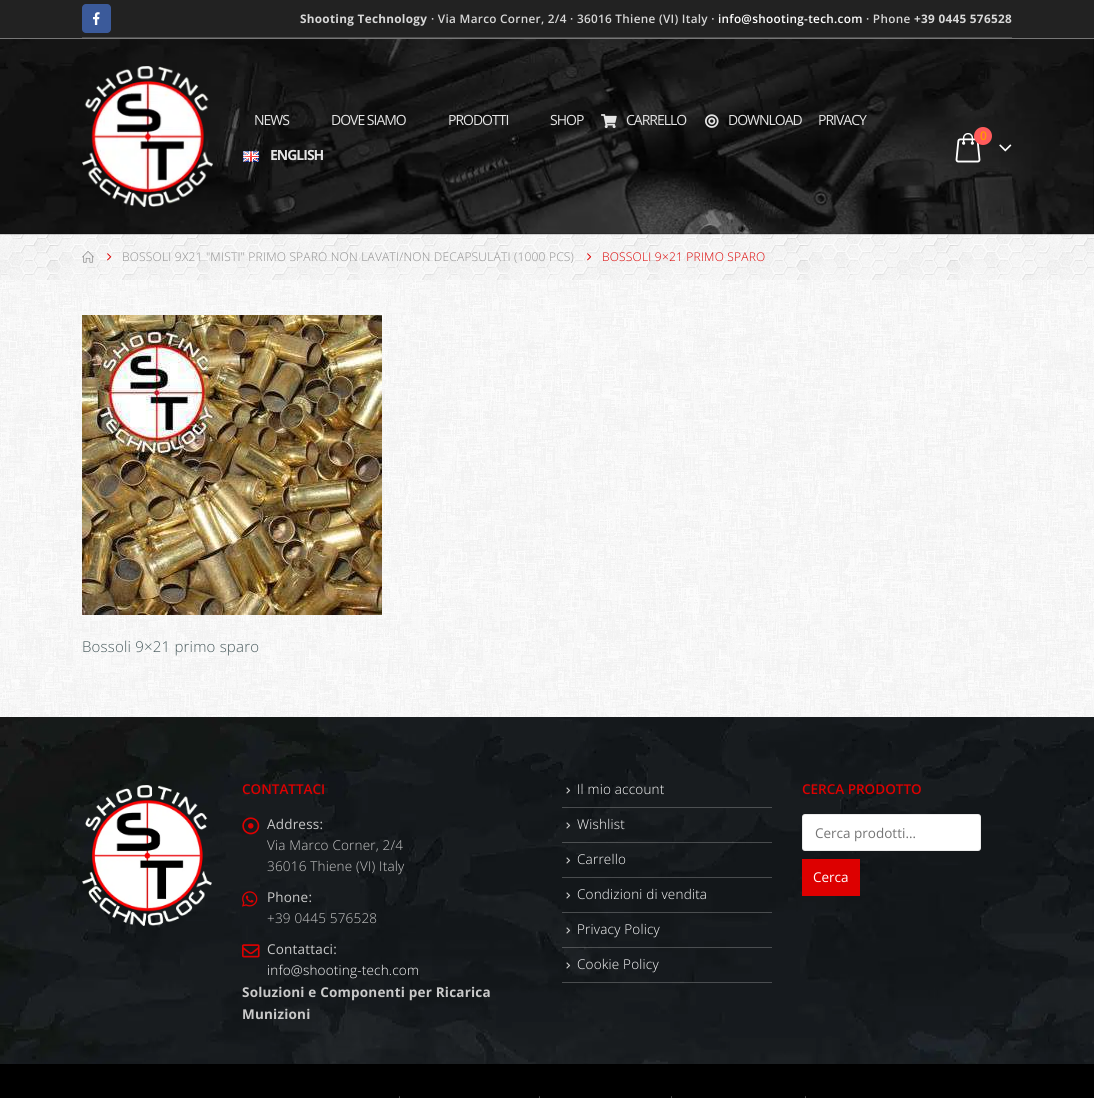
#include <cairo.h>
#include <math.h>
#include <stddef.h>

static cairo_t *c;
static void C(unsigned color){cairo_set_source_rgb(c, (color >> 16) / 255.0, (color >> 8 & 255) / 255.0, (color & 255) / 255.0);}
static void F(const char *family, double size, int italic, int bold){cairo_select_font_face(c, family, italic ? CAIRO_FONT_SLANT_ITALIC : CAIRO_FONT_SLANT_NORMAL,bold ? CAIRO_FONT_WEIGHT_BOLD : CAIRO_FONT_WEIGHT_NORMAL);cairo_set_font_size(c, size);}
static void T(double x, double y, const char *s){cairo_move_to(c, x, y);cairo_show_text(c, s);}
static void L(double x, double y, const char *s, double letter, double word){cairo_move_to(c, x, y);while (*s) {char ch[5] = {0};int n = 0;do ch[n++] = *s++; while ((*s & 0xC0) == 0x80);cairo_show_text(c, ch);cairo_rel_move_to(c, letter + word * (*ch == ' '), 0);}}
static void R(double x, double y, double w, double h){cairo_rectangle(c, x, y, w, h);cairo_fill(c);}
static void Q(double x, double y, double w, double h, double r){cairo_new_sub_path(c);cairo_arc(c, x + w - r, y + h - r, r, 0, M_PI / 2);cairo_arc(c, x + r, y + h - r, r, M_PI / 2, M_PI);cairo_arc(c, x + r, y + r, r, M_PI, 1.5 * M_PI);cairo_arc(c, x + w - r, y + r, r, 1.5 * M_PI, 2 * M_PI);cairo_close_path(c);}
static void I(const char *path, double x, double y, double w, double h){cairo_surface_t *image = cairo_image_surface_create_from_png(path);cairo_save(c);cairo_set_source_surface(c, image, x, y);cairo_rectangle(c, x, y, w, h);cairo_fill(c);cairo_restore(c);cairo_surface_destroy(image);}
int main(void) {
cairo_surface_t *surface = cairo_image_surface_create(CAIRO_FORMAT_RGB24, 1094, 1098);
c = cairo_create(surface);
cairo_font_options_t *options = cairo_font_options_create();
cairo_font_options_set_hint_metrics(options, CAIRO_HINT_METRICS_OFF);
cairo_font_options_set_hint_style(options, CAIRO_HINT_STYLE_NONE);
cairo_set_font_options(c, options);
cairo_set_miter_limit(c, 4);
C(0xffffff);
cairo_paint(c);
I("1.png",0,234,1094,46);
C(0x000000);
R(0,39,1094,195);
C(0x222222);
R(0,0,1094,38);
C(0x777777);
R(0,38,1094,1);
C(0x4d4d4d);
R(82,37,930,1);
C(0x3b5a9a);
Q(82,4,29,29,4);
cairo_fill(c);
I("2.png",93,12,7,13);
F("Open Sans",11.75,0,1);
C(0xd8d8d8);
L(300,23,"Shooting Technology",.3,0);
F("Open Sans SemiBold",11.75,0,0);
L(431,23,"· Via Marco Corner, 2/4 · 36016 Thiene (VI) Italy ·",.3,0);
C(0xffffff);
L(718,23,"info@shooting-tech.com",.3,0);
C(0xd8d8d8);
L(866,23,"· Phone",.3,0);
F("Open Sans",11.75,0,1);
L(914,23,"+39 0445 576528",.3,0);
I("3.png",0,39,1094,196);
I("4.png",82,66,131,141);
F("Open Sans",14,0,0);
C(0xe5e5e5);
L(254,125,"NEWS",-1,0);
L(331,125,"DOVE SIAMO",-1,0);
L(448,125,"PRODOTTI",-1,0);
L(550,125,"SHOP",-1,0);
I("5.png",601,114,16,15);
L(626,125,"CARRELLO",-1,0);
I("6.png",705,114,14,14);
L(728,125,"DOWNLOAD",-1,0);
L(818,125,"PRIVACY",-1,0);
I("7.png",243,151,16,11);
F("Open Sans",14,0,1);
L(270,160,"ENGLISH",-1,0);
I("8.png",955,133,26,30);
C(0xff5b5b);
cairo_arc(c,983,136,9,0,2 * M_PI);
cairo_fill(c);
F("Open Sans SemiBold",12,0,0);
C(0xff9900);
L(980,140,"0",.2,0);
I("9.png",999,144,13,8);
I("10.png",82,251,12,12);
I("11.png",107,253,5,8);
F("Open Sans Light",12,0,0);
C(0x8e8e8e);
L(122,261,"BOSSOLI 9X21 \"MISTI\" PRIMO SPARO NON LAVATI/NON DECAPSULATI (1000 PCS)",.2,0);
I("12.png",587,253,5,8);
C(0xdd0000);
L(602,261,"BOSSOLI 9×21 PRIMO SPARO",.2,0);
I("13.png",0,280,1094,437);
I("14.png",82,315,300,300);
F("Open Sans Light",15,0,0);
C(0x4a5c5e);
L(82,652,"Bossoli 9×21 primo sparo",.2,0);
I("15.png",0,717,1094,347);
I("16.png",82,785,130,141);
F("Open Sans SemiBold",13.5,0,0);
C(0xdd0000);
T(242,794,"CONTATTACI");
I("17.png",242,817,18,18);
F("Open Sans",13.5,0,0);
C(0xc9c9c9);
L(267,829,"Address:",.2,0);
F("Open Sans Light",13.5,0,0);
L(267,850,"Via Marco Corner, 2/4",.2,0);
L(267,871,"36016 Thiene (VI) Italy",.2,0);
I("18.png",242,891,16,16);
F("Open Sans",13.5,0,0);
L(267,902,"Phone:",.2,0);
F("Open Sans Light",13.5,0,0);
L(267,923,"+39 0445 576528",.2,0);
I("19.png",242,944,18,14);
F("Open Sans",13.5,0,0);
L(267,954,"Contattaci:",.2,0);
F("Open Sans Light",13.5,0,0);
C(0xffffff);
L(267,975,"info@shooting-tech.com",.2,0);
F("Open Sans",13.5,0,1);
C(0xc9c9c9);
L(242,997,"Soluzioni e Componenti per Ricarica",.2,0);
L(242,1019,"Munizioni",.2,0);
cairo_set_source_rgba(c,0.788,0.788,0.788,0.3);
R(562,982,210,1);
I("20.png",566,787,5,7);
F("Open Sans Light",13.5,0,0);
C(0xffffff);
L(577,794,"Il mio account",.2,0);
cairo_set_source_rgba(c,0.788,0.788,0.788,0.3);
R(562,807,210,1);
I("21.png",566,822,5,7);
C(0xffffff);
L(577,829,"Wishlist",.2,0);
cairo_set_source_rgba(c,0.788,0.788,0.788,0.3);
R(562,842,210,1);
I("22.png",566,857,5,7);
C(0xffffff);
L(577,864,"Carrello",.2,0);
cairo_set_source_rgba(c,0.788,0.788,0.788,0.3);
R(562,877,210,1);
I("22.png",566,892,5,7);
C(0xffffff);
L(577,899,"Condizioni di vendita",.2,0);
cairo_set_source_rgba(c,0.788,0.788,0.788,0.3);
R(562,912,210,1);
I("23.png",566,927,5,7);
C(0xffffff);
L(577,934,"Privacy Policy",.2,0);
cairo_set_source_rgba(c,0.788,0.788,0.788,0.3);
R(562,947,210,1);
I("24.png",566,962,5,7);
C(0xffffff);
L(577,969,"Cookie Policy",.2,0);
F("Open Sans SemiBold",13.5,0,0);
C(0xdd0000);
T(802,794,"CERCA PRODOTTO");
C(0xffffff);
Q(802,814,179,37,3);
cairo_fill(c);
Q(802.5,814.5,178,36,2.5);
cairo_set_source_rgba(c,0,0,0,0.08);
cairo_set_line_width(c,1);
cairo_stroke(c);
F("Open Sans",13.5,0,0);
C(0x757575);
T(815,838,"Cerca prodotti…");
C(0xdd0000);
R(802,859,58,37);
C(0xffffff);
T(813,882,"Cerca");
C(0x000000);
R(0,1064,1094,34);
F("Open Sans Light",12,0,0);
C(0xa8a8a8);
L(398,1101,"·",.2,0);
L(538,1101,"·",.2,0);
L(670,1101,"·",.2,0);
L(804,1101,"·",.2,0);
cairo_surface_write_to_png(surface, "o.png");
cairo_font_options_destroy(options);
cairo_destroy(c);
cairo_surface_destroy(surface);
return 0;
}
